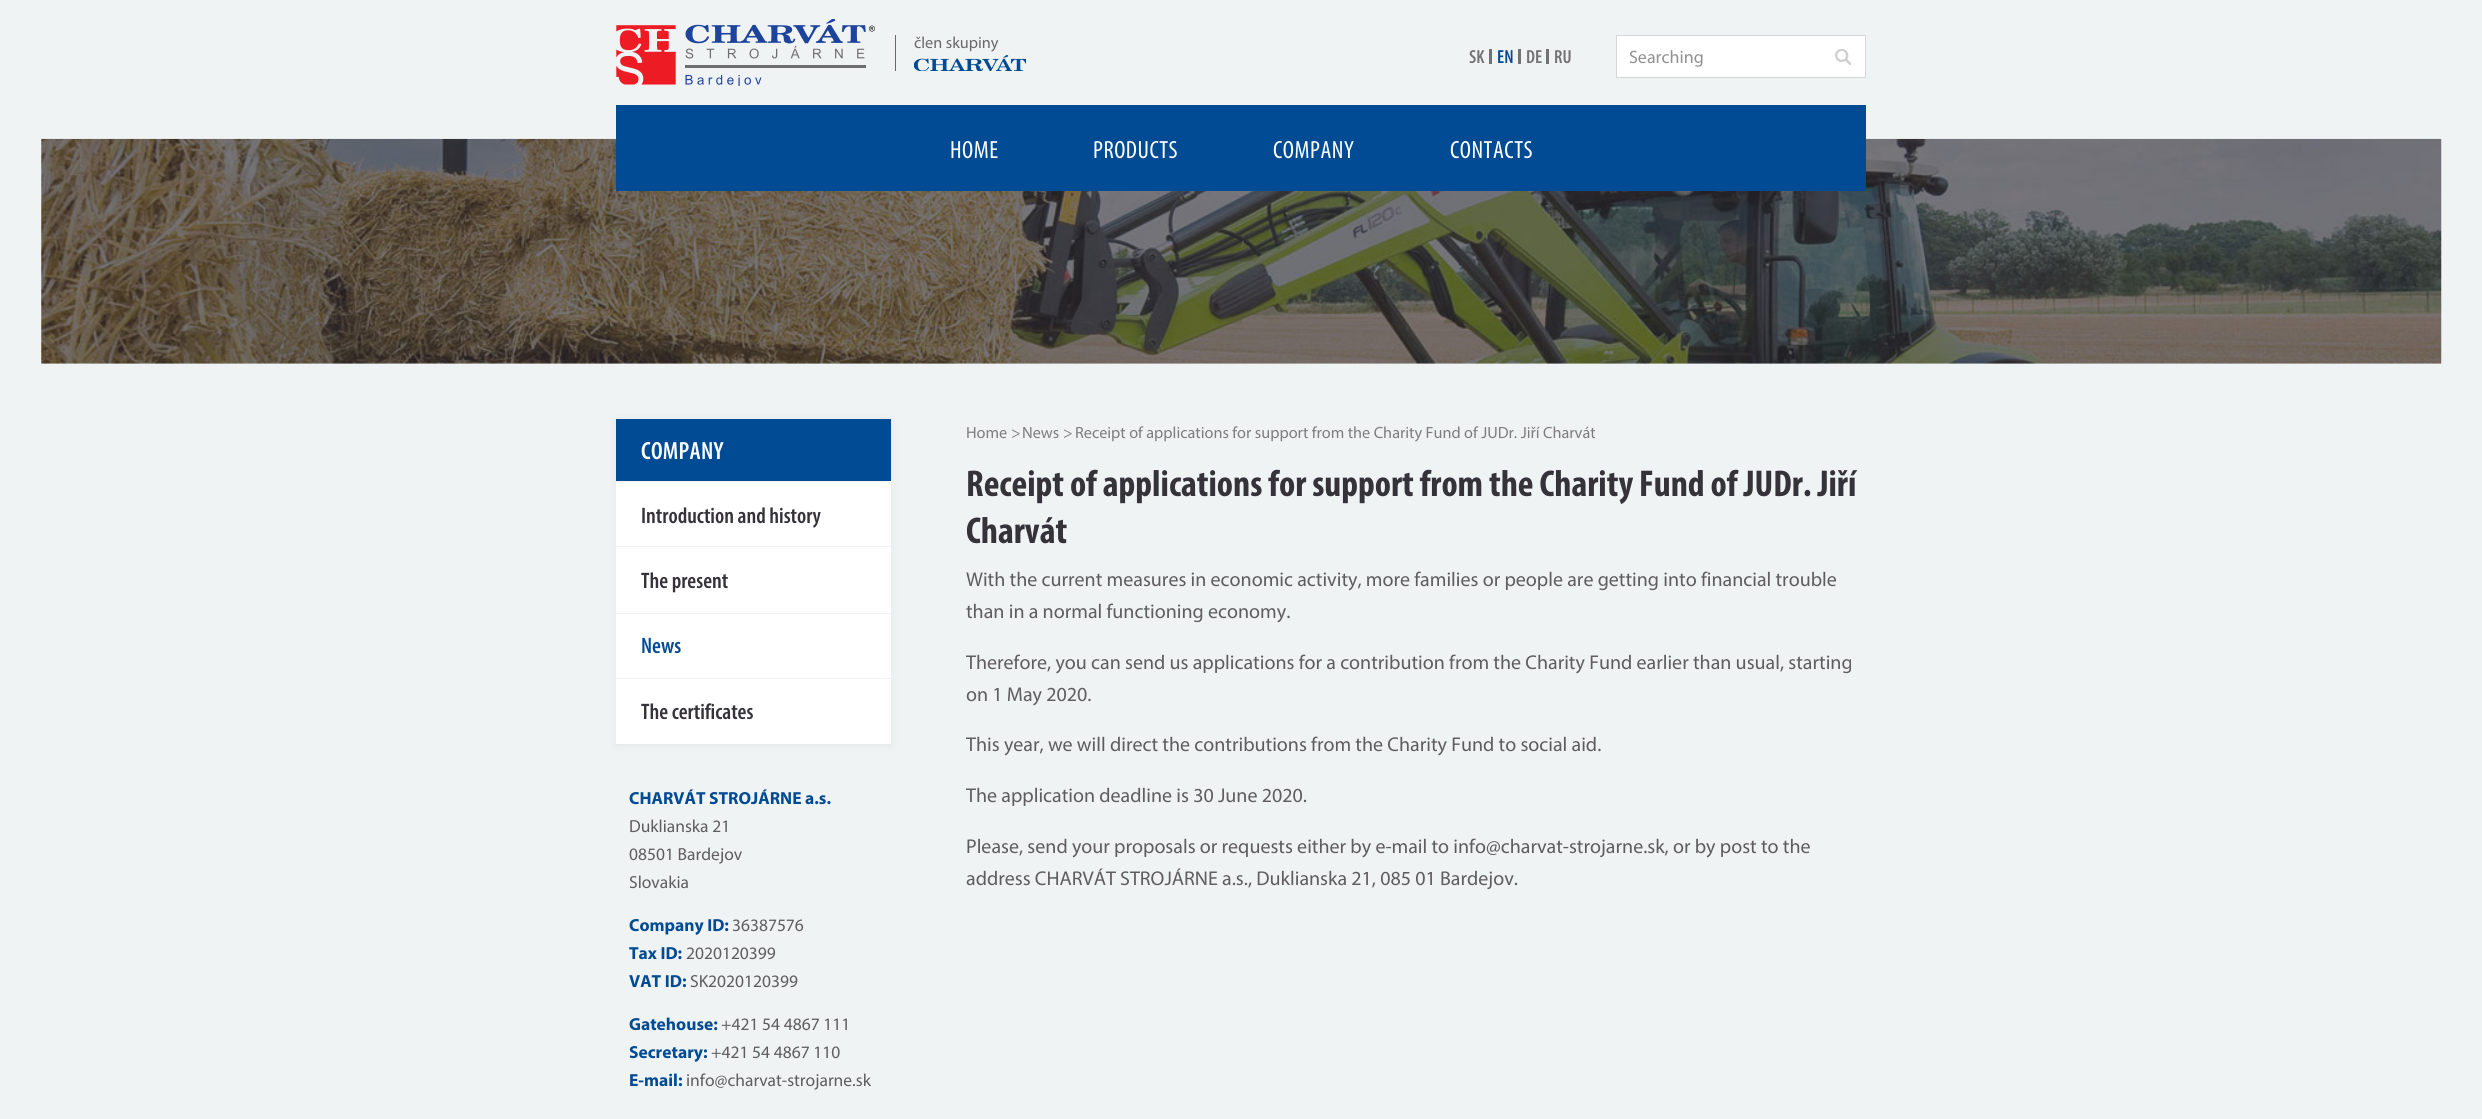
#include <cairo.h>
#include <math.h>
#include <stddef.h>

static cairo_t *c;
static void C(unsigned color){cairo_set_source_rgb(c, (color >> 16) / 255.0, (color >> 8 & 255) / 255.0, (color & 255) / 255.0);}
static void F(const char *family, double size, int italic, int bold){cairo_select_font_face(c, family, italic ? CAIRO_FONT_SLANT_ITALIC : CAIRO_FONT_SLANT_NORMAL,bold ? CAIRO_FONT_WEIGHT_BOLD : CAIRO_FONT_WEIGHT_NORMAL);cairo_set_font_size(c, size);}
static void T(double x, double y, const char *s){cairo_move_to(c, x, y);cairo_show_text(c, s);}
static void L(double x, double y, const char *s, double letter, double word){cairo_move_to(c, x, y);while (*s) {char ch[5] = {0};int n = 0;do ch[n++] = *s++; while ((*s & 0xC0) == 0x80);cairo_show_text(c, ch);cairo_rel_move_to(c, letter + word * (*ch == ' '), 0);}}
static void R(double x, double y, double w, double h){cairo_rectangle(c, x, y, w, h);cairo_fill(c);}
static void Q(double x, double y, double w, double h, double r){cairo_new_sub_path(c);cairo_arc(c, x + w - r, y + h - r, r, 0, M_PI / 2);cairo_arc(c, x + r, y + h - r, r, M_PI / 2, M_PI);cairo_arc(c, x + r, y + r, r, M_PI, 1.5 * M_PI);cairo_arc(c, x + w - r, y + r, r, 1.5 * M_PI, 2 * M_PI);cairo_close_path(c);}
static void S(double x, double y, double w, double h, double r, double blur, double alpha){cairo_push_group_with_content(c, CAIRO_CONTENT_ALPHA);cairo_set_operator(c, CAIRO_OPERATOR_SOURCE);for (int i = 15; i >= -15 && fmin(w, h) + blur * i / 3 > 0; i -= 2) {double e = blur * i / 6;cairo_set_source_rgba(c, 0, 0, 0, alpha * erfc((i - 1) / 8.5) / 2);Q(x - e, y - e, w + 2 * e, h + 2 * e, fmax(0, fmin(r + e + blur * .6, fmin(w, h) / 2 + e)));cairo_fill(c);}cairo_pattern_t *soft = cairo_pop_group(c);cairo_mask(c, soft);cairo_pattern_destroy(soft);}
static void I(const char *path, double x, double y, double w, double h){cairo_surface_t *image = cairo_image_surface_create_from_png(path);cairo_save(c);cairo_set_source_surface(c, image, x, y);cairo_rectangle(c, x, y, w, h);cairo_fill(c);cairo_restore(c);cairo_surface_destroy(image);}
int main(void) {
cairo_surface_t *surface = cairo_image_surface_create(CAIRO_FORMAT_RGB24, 2482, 1119);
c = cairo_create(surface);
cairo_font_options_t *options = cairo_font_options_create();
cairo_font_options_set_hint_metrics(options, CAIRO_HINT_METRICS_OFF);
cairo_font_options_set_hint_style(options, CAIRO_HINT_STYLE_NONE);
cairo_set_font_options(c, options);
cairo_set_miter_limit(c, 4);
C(0xf0f3f4);
cairo_paint(c);
I("1.png",616,19,259,67);
C(0x686868);
R(895,35,1,36);
F("Myriad",16.25,0,0);
T(914,48,"člen skupiny");
I("2.png",914,55,112,16);
I("4.png",41,138,2401,226);
C(0x004b93);
R(616,105,1250,86);
C(0xffffff);
cairo_rectangle(c,1616.5,35.5,249,42);
cairo_fill_preserve(c);
C(0xd7d7d7);
cairo_set_line_width(c,1);
cairo_stroke(c);
F("Myriad",18,0,0);
C(0x919191);
T(1629,63,"Searching");
I("3.png",1835,49,16,16);
F("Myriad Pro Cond",25,0,0);
C(0xffffff);
L(950,158,"HOME",.5,0);
L(1093,158,"PRODUCTS",.5,0);
L(1273,158,"COMPANY",.5,0);
L(1450,158,"CONTACTS",.5,0);
F("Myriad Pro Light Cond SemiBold",19,0,0);
C(0x727272);
T(1469,63,"SK");
R(1489,49,3,15);
C(0x004b93);
T(1497,63,"EN");
C(0x727272);
R(1518,49,3,15);
T(1526,63,"DE");
R(1546,49,3,15);
T(1554,63,"RU");
C(0x000000);
S(616,421,275,325,0,4.5,.05);
C(0xffffff);
R(616,482,275,262);
C(0x004b93);
R(616,419,275,62);
F("Myriad Pro Light Cond SemiBold",25,0,0);
C(0xffffff);
L(641,459,"COMPANY",.25,0);
C(0xf0f3f4);
R(616,481,275,1);
F("Myriad Pro Light Cond SemiBold",22.5,0,0);
C(0x353339);
T(641,523,"Introduction and history");
C(0xf0f3f4);
R(616,546,275,1);
C(0x353339);
T(641,588,"The present");
C(0xf0f3f4);
R(616,613,275,1);
C(0x004b93);
T(641,653,"News");
C(0xf0f3f4);
R(616,678,275,1);
C(0x353339);
T(641,719,"The certificates");
F("Myriad",17.5,0,1);
C(0x004b93);
T(629,804,"CHARVÁT STROJÁRNE a.s.");
F("Myriad",17.5,0,0);
C(0x5e5e5e);
T(629,832,"Duklianska 21");
T(629,860,"08501 Bardejov");
T(629,888,"Slovakia");
F("Myriad",17.5,0,1);
C(0x004b93);
T(629,931,"Company ID:");
F("Myriad",17.5,0,0);
C(0x5e5e5e);
T(732,931,"36387576");
F("Myriad",17.5,0,1);
C(0x004b93);
T(629,959,"Tax ID:");
F("Myriad",17.5,0,0);
C(0x5e5e5e);
T(686,959,"2020120399");
F("Myriad",17.5,0,1);
C(0x004b93);
T(629,987,"VAT ID:");
F("Myriad",17.5,0,0);
C(0x5e5e5e);
T(690,987,"SK2020120399");
F("Myriad",17.5,0,1);
C(0x004b93);
T(629,1030,"Gatehouse:");
F("Myriad",17.5,0,0);
C(0x5e5e5e);
T(721,1030,"+421 54 4867 111");
F("Myriad",17.5,0,1);
C(0x004b93);
T(629,1058,"Secretary:");
F("Myriad",17.5,0,0);
C(0x5e5e5e);
T(711,1058,"+421 54 4867 110");
F("Myriad",17.5,0,1);
C(0x004b93);
T(629,1086,"E-mail:");
F("Myriad",17.5,0,0);
C(0x5e5e5e);
T(686,1086,"info@charvat-strojarne.sk");
F("Myriad",16.25,0,0);
C(0x7d7d7d);
T(966,438,"Home");
T(1011,438,">");
T(1022,438,"News");
T(1063,438,">");
T(1075,438,"Receipt of applications for support from the Charity Fund of JUDr. Jiří Charvát");
F("Myriad Pro Cond",37.5,0,1);
C(0x353339);
T(966,496,"Receipt of applications for support from the Charity Fund of JUDr. Jiří");
T(966,543,"Charvát");
F("Myriad",20,0,0);
C(0x5e5e5e);
T(966,586,"With the current measures in economic activity, more families or people are getting into financial trouble");
T(966,618,"than in a normal functioning economy.");
T(966,669,"Therefore, you can send us applications for a contribution from the Charity Fund earlier than usual, starting");
T(966,701,"on 1 May 2020.");
T(966,751,"This year, we will direct the contributions from the Charity Fund to social aid.");
T(966,802,"The application deadline is 30 June 2020.");
T(966,853,"Please, send your proposals or requests either by e-mail to info@charvat-strojarne.sk, or by post to the");
T(966,885,"address CHARVÁT STROJÁRNE a.s., Duklianska 21, 085 01 Bardejov.");
cairo_surface_write_to_png(surface, "o.png");
cairo_font_options_destroy(options);
cairo_destroy(c);
cairo_surface_destroy(surface);
return 0;
}
